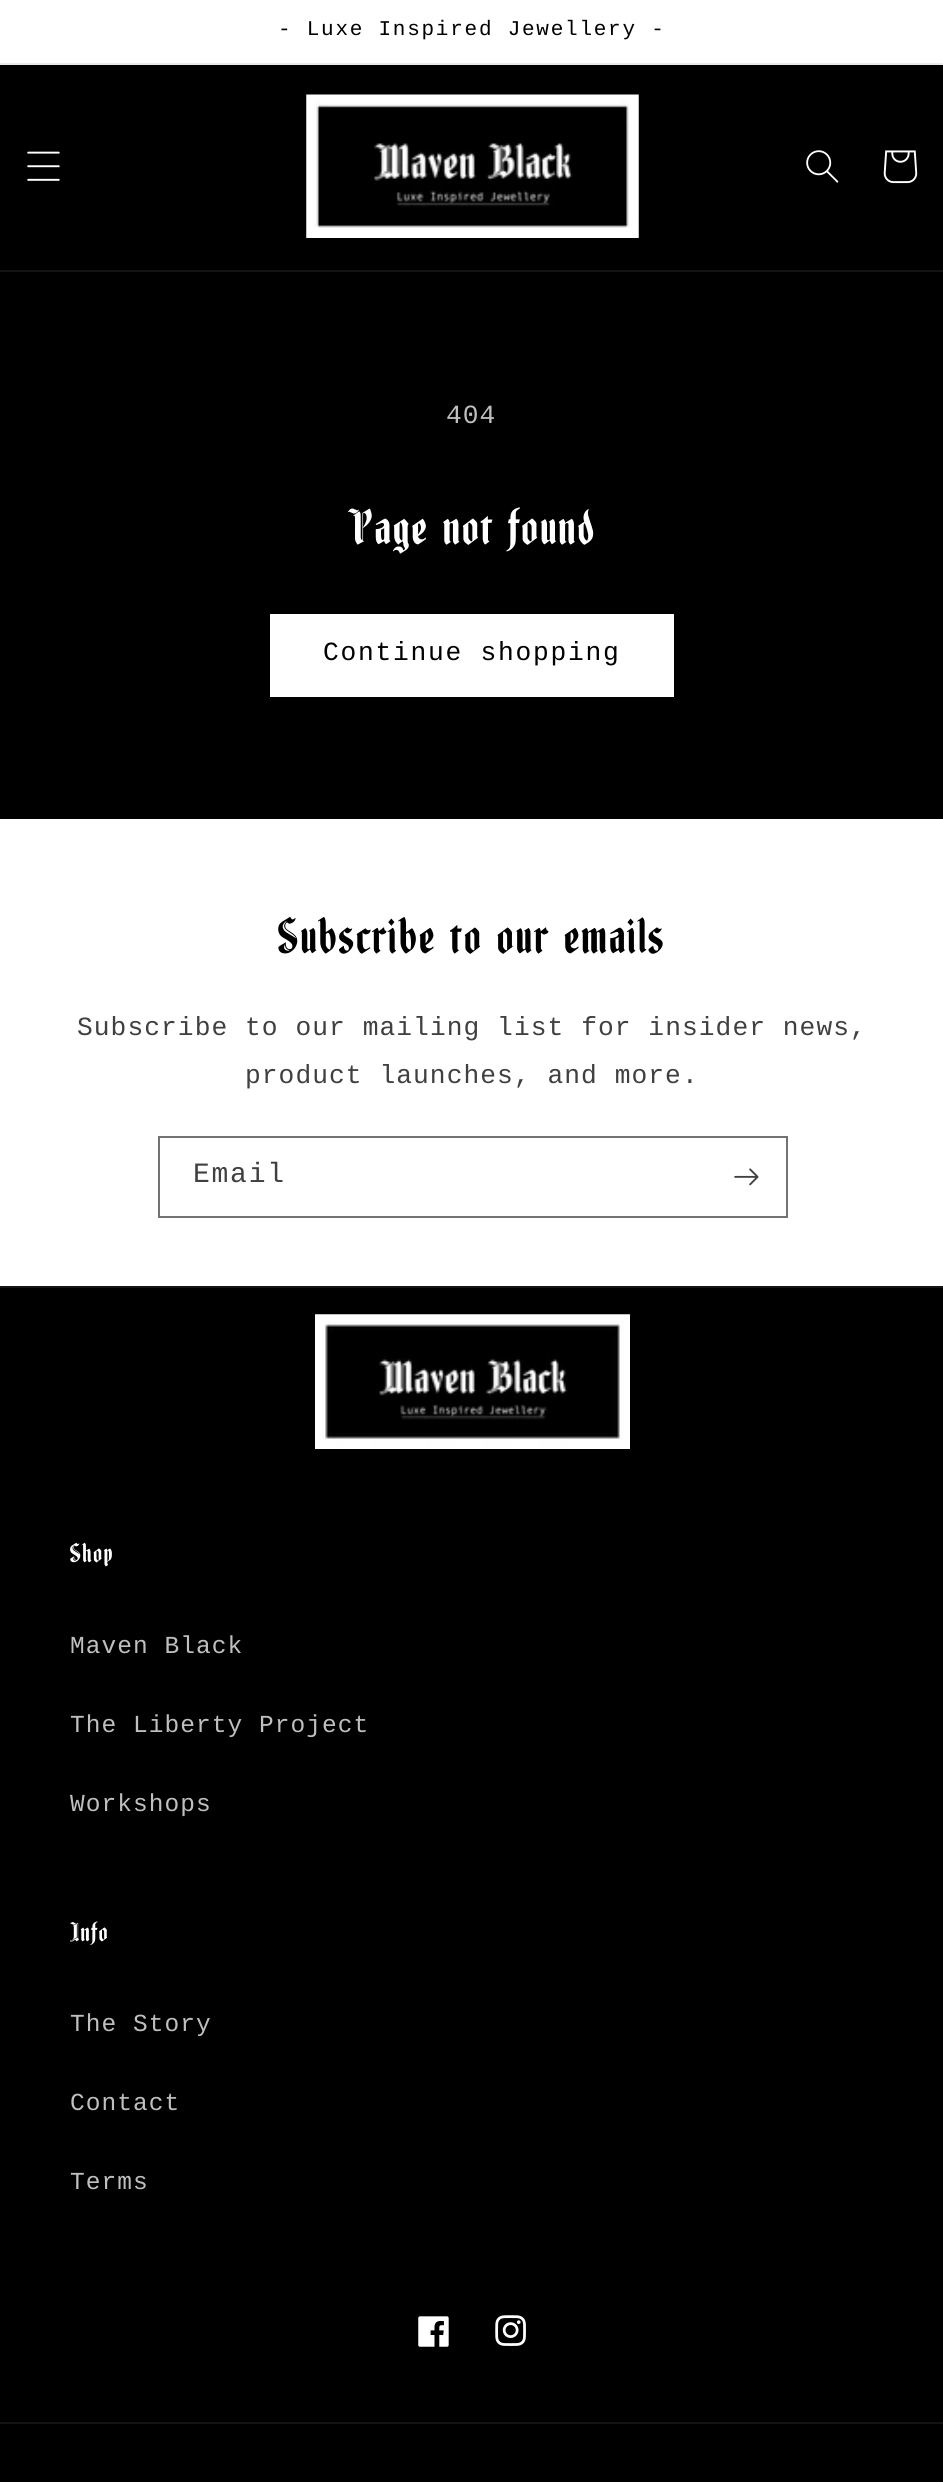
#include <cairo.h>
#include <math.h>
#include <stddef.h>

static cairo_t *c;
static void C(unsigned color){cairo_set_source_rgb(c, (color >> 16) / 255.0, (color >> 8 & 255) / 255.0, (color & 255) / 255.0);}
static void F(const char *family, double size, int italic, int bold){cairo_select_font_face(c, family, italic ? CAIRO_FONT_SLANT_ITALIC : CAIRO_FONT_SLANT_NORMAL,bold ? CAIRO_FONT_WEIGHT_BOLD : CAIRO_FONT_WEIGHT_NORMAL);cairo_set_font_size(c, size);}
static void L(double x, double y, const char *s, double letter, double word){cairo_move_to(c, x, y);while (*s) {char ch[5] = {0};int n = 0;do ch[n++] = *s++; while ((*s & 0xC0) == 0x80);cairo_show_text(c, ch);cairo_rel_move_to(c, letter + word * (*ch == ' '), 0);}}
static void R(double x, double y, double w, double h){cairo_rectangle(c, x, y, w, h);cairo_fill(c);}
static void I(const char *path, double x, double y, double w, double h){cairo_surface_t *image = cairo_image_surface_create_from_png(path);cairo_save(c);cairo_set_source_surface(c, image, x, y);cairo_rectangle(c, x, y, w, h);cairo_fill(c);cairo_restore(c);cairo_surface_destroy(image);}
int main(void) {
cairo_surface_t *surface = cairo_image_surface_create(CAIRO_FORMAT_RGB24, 943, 2482);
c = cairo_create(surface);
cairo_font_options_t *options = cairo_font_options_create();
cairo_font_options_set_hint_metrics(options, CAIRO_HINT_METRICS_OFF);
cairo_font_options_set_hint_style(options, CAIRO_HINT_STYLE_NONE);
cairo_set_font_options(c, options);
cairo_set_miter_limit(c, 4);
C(0x000000);
cairo_paint(c);
C(0xffffff);
R(0,0,943,63);
C(0xebebeb);
R(0,63,943,2);
F("Liberation Mono",21,0,0);
C(0x000000);
L(278,35,"- Luxe Inspired Jewellery -",1.75,0);
C(0x141414);
R(0,270,943,2);
I("1.png",27,151,33,30);
I("2.png",306,94,333,144);
I("3.png",806,150,33,33);
I("4.png",883,150,35,34);
F("Liberation Mono",26.25,0,0);
C(0xbfbfbf);
L(446,423,"404",1.05,0);
F("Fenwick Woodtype",52.5,0,0);
C(0xffffff);
L(348,544,"Page not found",1.05,0);
R(270,614,404,83);
F("Liberation Mono",26.25,0,0);
C(0x000000);
L(323,660,"Continue shopping",1.75,0);
C(0xffffff);
R(0,819,943,467);
F("Fenwick Woodtype",52.5,0,0);
C(0x000000);
L(278,953,"Subscribe to our emails",1.05,0);
F("Liberation Mono",26.25,0,0);
C(0x404040);
L(77,1035,"Subscribe to our mailing list for insider news,",1.05,0);
L(245,1083,"product launches, and more.",1.05,0);
cairo_rectangle(c,159,1137,628,80);
C(0x737373);
cairo_stroke(c);
F("Liberation Mono",28,0,0);
C(0x404040);
L(193,1182,"Email",1.75,0);
I("5.png",734,1168,25,18);
C(0x141414);
R(0,1286,943,2);
I("6.png",315,1314,315,135);
F("Fenwick Woodtype",28,0,0);
C(0xffffff);
L(70,1562,"Shop",1.05,0);
F("Liberation Mono",24.5,0,0);
C(0xbfbfbf);
L(70,1653,"Maven Black",1.05,0);
L(70,1732,"The Liberty Project",1.05,0);
L(70,1811,"Workshops",1.05,0);
F("Fenwick Woodtype",28,0,0);
C(0xffffff);
L(70,1941,"Info",1.05,0);
F("Liberation Mono",24.5,0,0);
C(0xbfbfbf);
L(70,2031,"The Story",1.05,0);
L(70,2110,"Contact",1.05,0);
L(70,2189,"Terms",1.05,0);
I("7.png",418,2316,31,31);
I("8.png",495,2315,31,31);
C(0x141414);
R(0,2422,943,2);
cairo_surface_write_to_png(surface, "o.png");
cairo_font_options_destroy(options);
cairo_destroy(c);
cairo_surface_destroy(surface);
return 0;
}
